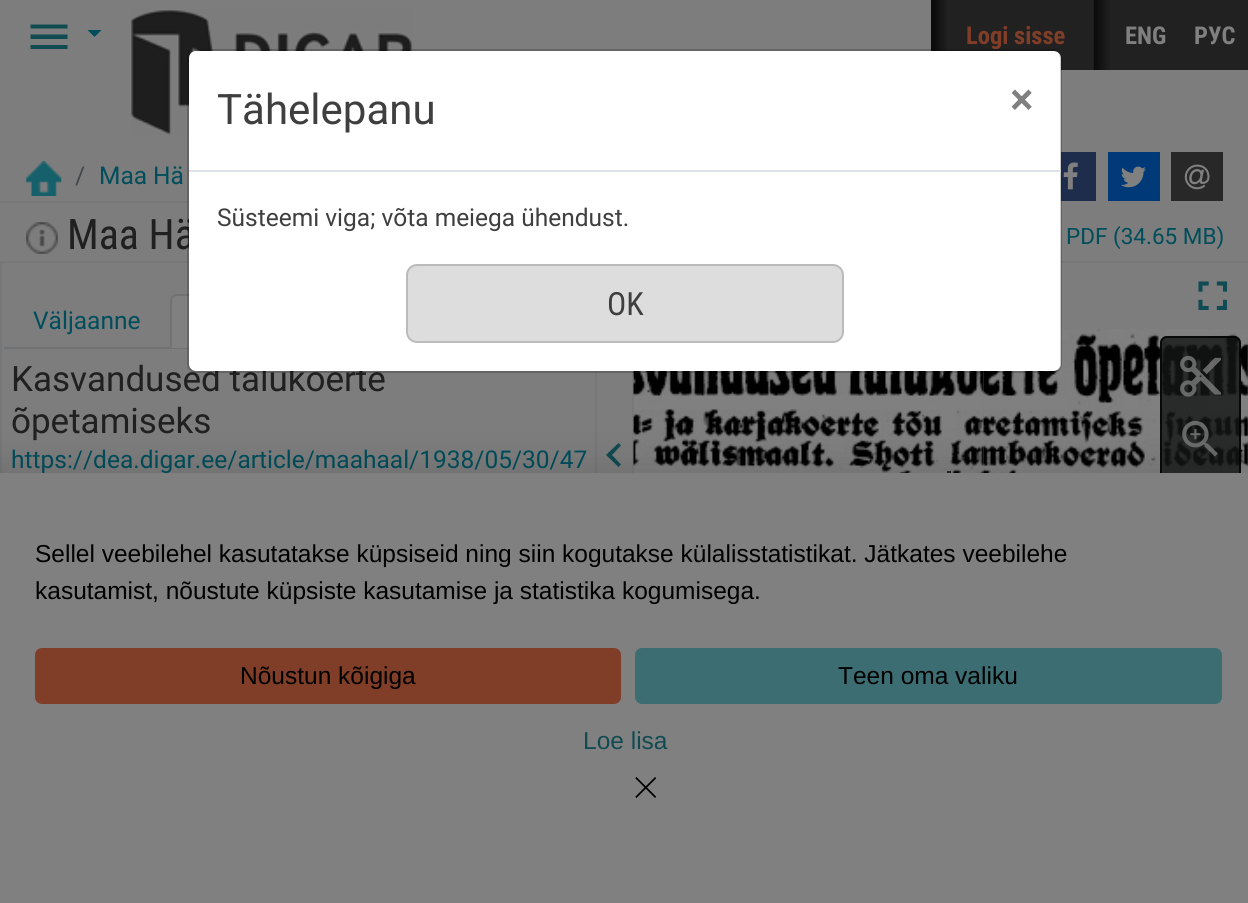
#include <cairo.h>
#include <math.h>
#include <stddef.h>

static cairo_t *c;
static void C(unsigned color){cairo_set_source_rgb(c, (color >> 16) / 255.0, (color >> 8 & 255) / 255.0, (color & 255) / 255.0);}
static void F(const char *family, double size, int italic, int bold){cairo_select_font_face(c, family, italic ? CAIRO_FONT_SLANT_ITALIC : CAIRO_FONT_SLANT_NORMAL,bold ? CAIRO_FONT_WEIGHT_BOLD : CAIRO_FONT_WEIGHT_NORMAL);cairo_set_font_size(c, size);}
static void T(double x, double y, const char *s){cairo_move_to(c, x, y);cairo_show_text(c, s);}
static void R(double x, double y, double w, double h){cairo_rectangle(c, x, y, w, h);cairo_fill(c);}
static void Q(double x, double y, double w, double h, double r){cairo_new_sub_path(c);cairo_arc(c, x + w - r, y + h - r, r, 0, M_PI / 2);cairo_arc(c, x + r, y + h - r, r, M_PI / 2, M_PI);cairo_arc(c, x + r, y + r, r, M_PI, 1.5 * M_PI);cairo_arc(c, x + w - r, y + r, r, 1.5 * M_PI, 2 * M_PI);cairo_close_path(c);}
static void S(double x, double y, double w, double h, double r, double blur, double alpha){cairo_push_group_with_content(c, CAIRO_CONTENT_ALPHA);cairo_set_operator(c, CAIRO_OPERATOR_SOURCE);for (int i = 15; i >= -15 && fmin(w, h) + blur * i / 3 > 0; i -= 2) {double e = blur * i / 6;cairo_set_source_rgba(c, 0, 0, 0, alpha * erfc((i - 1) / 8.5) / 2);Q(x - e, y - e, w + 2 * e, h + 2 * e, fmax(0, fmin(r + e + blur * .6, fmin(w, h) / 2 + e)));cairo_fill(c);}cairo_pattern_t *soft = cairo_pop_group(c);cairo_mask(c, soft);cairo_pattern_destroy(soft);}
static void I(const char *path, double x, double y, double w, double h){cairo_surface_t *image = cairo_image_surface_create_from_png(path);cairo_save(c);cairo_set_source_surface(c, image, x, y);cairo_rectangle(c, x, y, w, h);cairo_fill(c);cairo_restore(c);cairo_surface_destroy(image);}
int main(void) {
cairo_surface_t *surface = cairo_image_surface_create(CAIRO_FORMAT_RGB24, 1248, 903);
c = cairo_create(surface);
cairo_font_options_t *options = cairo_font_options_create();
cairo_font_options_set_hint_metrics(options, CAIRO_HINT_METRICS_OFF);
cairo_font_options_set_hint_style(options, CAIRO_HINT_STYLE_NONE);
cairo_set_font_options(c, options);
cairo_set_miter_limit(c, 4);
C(0x7d7d7d);
cairo_paint(c);
C(0x114b52);
cairo_new_path(c);
cairo_move_to(c,30.5,49);
cairo_line_to(c,67.5,49);
cairo_line_to(c,67.5,45);
cairo_line_to(c,30.5,45);
cairo_close_path(c);
cairo_move_to(c,30.5,39);
cairo_line_to(c,67.5,39);
cairo_line_to(c,67.5,34.5);
cairo_line_to(c,30.5,34.5);
cairo_close_path(c);
cairo_move_to(c,30.5,24.5);
cairo_line_to(c,30.5,28.5);
cairo_line_to(c,67.5,28.5);
cairo_line_to(c,67.5,24.5);
cairo_close_path(c);
cairo_fill(c);
C(0x004e5c);
cairo_new_path(c);
cairo_move_to(c,87.5,30);
cairo_line_to(c,101.5,30);
cairo_line_to(c,94.5,37);
cairo_close_path(c);
cairo_fill(c);
I("1.png",131,9,283,126);
C(0x212121);
R(931,0,317,70);
I("2.png",1093,0,17,70);
I("3.png",931,0,16,51);
F("Roboto Condensed",24.5,0,1);
C(0x803d27);
T(966,44,"Logi sisse");
C(0x808080);
T(1125,44,"ENG");
T(1194,44,"РУС");
C(0x767778);
R(0,201,189,2);
I("4.png",26,161,36,35);
F("Roboto",24.5,0,0);
C(0x43474b);
T(75,184,"/");
C(0x004e5c);
T(99,184,"Maa Hä");
C(0x1e2d4c);
R(1061,152,35,49);
I("5.png",1063,162,15,28);
C(0x003977);
R(1108,152,52,49);
I("6.png",1121,166,25,22);
C(0x282828);
R(1171,152,52,49);
I("7.png",1184,164,26,26);
F("Roboto Condensed",42,0,0);
C(0x202020);
T(67,249,"Maa Hä");
cairo_rectangle(c,1,262,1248,386);
C(0x767778);
cairo_stroke(c);
C(0x6f7173);
R(4,347,185,2);
C(0x808080);
cairo_new_path(c);
cairo_move_to(c,177,294);
cairo_line_to(c,326,294);
cairo_curve_to(c,330,294,333,297,333,301);
cairo_line_to(c,333,348);
cairo_line_to(c,170,348);
cairo_line_to(c,170,301);
cairo_curve_to(c,170,297,173,294,177,294);
cairo_close_path(c);
cairo_fill(c);
C(0x6f7173);
cairo_new_path(c);
cairo_move_to(c,177,294);
cairo_curve_to(c,175,294,173,295,172,296);
cairo_line_to(c,173,298);
cairo_curve_to(c,174,296,176,296,177,296);
cairo_line_to(c,326,296);
cairo_line_to(c,329,297);
cairo_line_to(c,330,296);
cairo_curve_to(c,329,295,328,294,326,294);
cairo_close_path(c);
cairo_fill(c);
F("Roboto",35,0,0);
C(0x202020);
T(11,391,"Kasvandused talukoerte");
C(0x767778);
R(632,371,2,102);
I("10.png",633,371,351,102);
I("11.png",983,329,265,144);
C(0xffffff);
Q(189,51,872,320,7);
cairo_fill(c);
C(0x767778);
R(595,371,2,102);
Q(188,50,873,322,8);
cairo_set_source_rgba(c,0,0,0,0.2);
cairo_stroke(c);
C(0xdee2e6);
R(189,170,872,2);
F("Roboto",42,0,0);
C(0x3f3f3f);
T(217,124,"Tähelepanu");
F("Roboto",42,0,1);
C(0x808080);
T(1010,114,"×");
F("Roboto",24.5,0,0);
C(0x3f3f3f);
T(217,226,"Süsteemi viga; võta meiega ühendust.");
C(0xdddddd);
Q(407,265,436,77,10);
cairo_fill_preserve(c);
C(0xbbbbbb);
cairo_stroke(c);
F("Roboto Condensed",32,0,0);
C(0x3f3f3f);
T(607,315,"OK");
I("8.png",26,222,32,32);
F("Roboto",22.5,0,0);
C(0x004e5c);
T(1066,244,"PDF (34.65 MB)");
F("Roboto",24.5,0,0);
T(33,329,"Väljaanne");
C(0x6f7173);
cairo_new_path(c);
cairo_move_to(c,172,296);
cairo_curve_to(c,171,297,170,299,170,301);
cairo_line_to(c,170,348);
cairo_line_to(c,172,346);
cairo_line_to(c,172,301);
cairo_curve_to(c,172,300,172,298,173,298);
cairo_close_path(c);
cairo_fill(c);
F("Roboto",35,0,0);
C(0x202020);
T(11,433,"õpetamiseks");
F("Roboto",24.5,0,0);
C(0x004e5c);
T(11,468,"https://dea.digar.ee/article/maahaal/1938/05/30/47");
C(0x114b52);
cairo_new_path(c);
cairo_move_to(c,621,445.5);
cairo_line_to(c,618.5,443);
cairo_line_to(c,606,455);
cairo_line_to(c,618.5,467);
cairo_line_to(c,621,464.5);
cairo_line_to(c,612,455);
cairo_close_path(c);
cairo_fill(c);
I("9.png",1198,281,30,30);
C(0x232526);
R(947,471,4,2);
cairo_set_source_rgba(c,0.082,0.086,0.086,0.8);
Q(1160,336,81,207,7);
cairo_fill(c);
Q(1161,337,79,205,6);
cairo_set_source_rgba(c,0,0,0,0.8);
cairo_stroke(c);
I("12.png",1180,355,41,42);
I("13.png",1182,420,36,37);
C(0x000000);
S(-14,460,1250,431,0,17.5,.1);
C(0x808080);
R(0,473,1248,430);
F("Liberation Sans",24.5,0,0);
C(0x000000);
T(35,562,"Sellel veebilehel kasutatakse küpsiseid ning siin kogutakse külalisstatistikat. Jätkates veebilehe");
T(35,599,"kasutamist, nõustute küpsiste kasutamise ja statistika kogumisega.");
C(0x803d27);
Q(35,648,586,56,7);
cairo_fill(c);
C(0x000000);
T(240,684,"Nõustun kõigiga");
C(0x3c6d72);
Q(635,648,587,56,7);
cairo_fill(c);
C(0x000000);
T(838,684,"Teen oma valiku");
C(0x114b52);
T(583,749,"Loe lisa");
I("14.png",635,777,22,21);
cairo_surface_write_to_png(surface, "o.png");
cairo_font_options_destroy(options);
cairo_destroy(c);
cairo_surface_destroy(surface);
return 0;
}
